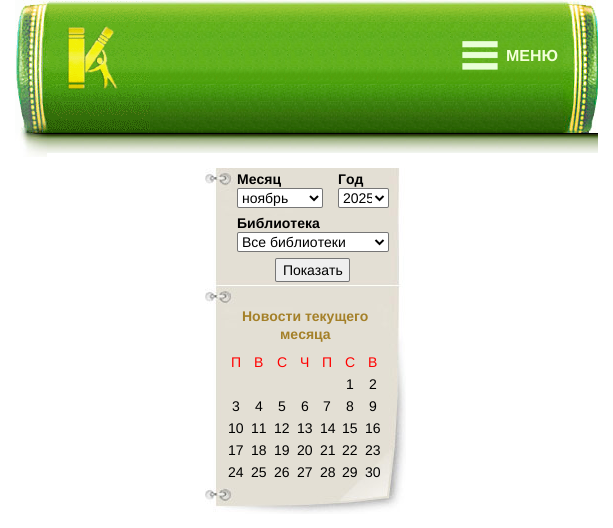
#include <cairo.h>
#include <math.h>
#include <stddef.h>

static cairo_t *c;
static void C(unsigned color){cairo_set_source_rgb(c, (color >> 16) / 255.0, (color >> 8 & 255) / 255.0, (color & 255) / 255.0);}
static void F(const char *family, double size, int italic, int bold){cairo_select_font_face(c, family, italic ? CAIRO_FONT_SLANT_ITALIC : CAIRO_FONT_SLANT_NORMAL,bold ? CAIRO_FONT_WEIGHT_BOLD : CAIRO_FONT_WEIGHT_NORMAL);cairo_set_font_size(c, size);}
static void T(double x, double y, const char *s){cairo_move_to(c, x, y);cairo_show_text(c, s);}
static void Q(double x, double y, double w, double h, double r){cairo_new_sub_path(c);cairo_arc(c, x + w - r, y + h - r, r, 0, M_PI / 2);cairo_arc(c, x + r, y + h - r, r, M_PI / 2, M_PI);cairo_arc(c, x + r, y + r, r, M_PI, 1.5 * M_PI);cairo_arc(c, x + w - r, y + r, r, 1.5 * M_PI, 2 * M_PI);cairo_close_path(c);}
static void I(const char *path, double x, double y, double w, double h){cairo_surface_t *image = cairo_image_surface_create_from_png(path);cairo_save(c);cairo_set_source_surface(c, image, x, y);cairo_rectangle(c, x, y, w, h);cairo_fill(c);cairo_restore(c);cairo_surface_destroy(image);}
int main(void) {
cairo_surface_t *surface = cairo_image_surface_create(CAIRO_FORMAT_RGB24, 613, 528);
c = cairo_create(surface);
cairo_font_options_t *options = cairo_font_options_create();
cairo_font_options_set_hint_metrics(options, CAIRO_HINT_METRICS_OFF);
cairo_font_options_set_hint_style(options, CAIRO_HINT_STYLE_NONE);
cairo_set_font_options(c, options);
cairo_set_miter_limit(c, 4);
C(0xffffff);
cairo_paint(c);
I("1.png",150,0,413,133);
I("2.png",15,0,135,133);
I("3.png",462,41,36,29);
F("Liberation Sans",16,0,1);
C(0xf3ffd9);
T(506,61,"МЕНЮ");
I("4.png",563,0,35,133);
I("5.png",47,133,551,20);
I("6.png",15,133,32,24);
I("7.png",205,168,201,346);
F("Liberation Sans",14,0,1);
C(0x000000);
T(237,184,"Месяц");
T(338,184,"Год");
C(0xffffff);
Q(237.5,188.5,85,19,1.5);
cairo_fill_preserve(c);
C(0x767676);
cairo_set_line_width(c,1);
cairo_stroke(c);
cairo_new_path(c);
cairo_move_to(c,310,196);
cairo_line_to(c,314,200);
cairo_line_to(c,318,196);
C(0x000000);
cairo_set_line_width(c,2);
cairo_stroke(c);
F("Liberation Sans",14,0,0);
T(242,203,"ноябрь");
C(0xffffff);
Q(338.5,188.5,50,19,1.5);
cairo_fill_preserve(c);
C(0x767676);
cairo_set_line_width(c,1);
cairo_stroke(c);
cairo_new_path(c);
cairo_move_to(c,375.5,196);
cairo_line_to(c,379.5,200);
cairo_line_to(c,383.5,196);
C(0x000000);
cairo_set_line_width(c,2);
cairo_stroke(c);
cairo_save(c);
cairo_rectangle(c,343,189,29,18);
cairo_clip(c);
T(343,203,"2025");
cairo_restore(c);
F("Liberation Sans",14,0,1);
T(237,228,"Библиотека");
C(0xffffff);
Q(237.5,232.5,151,19,1.5);
cairo_fill_preserve(c);
C(0x767676);
cairo_set_line_width(c,1);
cairo_stroke(c);
cairo_new_path(c);
cairo_move_to(c,375.5,240);
cairo_line_to(c,379.5,244);
cairo_line_to(c,383.5,240);
C(0x000000);
cairo_set_line_width(c,2);
cairo_stroke(c);
F("Liberation Sans",14,0,0);
T(242,247,"Все библиотеки");
C(0xefefef);
Q(275.5,258.5,74,23,1.5);
cairo_fill_preserve(c);
C(0x767676);
cairo_set_line_width(c,1);
cairo_stroke(c);
C(0x000000);
T(283,275,"Показать");
F("Liberation Sans",14,0,1);
C(0xa48028);
T(242,321,"Новости текущего");
T(280,339,"месяца");
F("Liberation Sans",14,0,0);
C(0xff0000);
T(231,367,"П");
T(254,367,"В");
T(277,367,"С");
T(300,367,"Ч");
T(322,367,"П");
T(345,367,"С");
T(368,367,"В");
C(0x000000);
T(346,389,"1");
T(369,389,"2");
T(232,411,"3");
T(255,411,"4");
T(278,411,"5");
T(301,411,"6");
T(323,411,"7");
T(346,411,"8");
T(369,411,"9");
T(228,433,"10");
T(251,433,"11");
T(274,433,"12");
T(297,433,"13");
T(320,433,"14");
T(342,433,"15");
T(365,433,"16");
T(228,455,"17");
T(251,455,"18");
T(274,455,"19");
T(297,455,"20");
T(320,455,"21");
T(342,455,"22");
T(365,455,"23");
T(228,477,"24");
T(251,477,"25");
T(274,477,"26");
T(297,477,"27");
T(320,477,"28");
T(342,477,"29");
T(365,477,"30");
cairo_surface_write_to_png(surface, "o.png");
cairo_font_options_destroy(options);
cairo_destroy(c);
cairo_surface_destroy(surface);
return 0;
}
